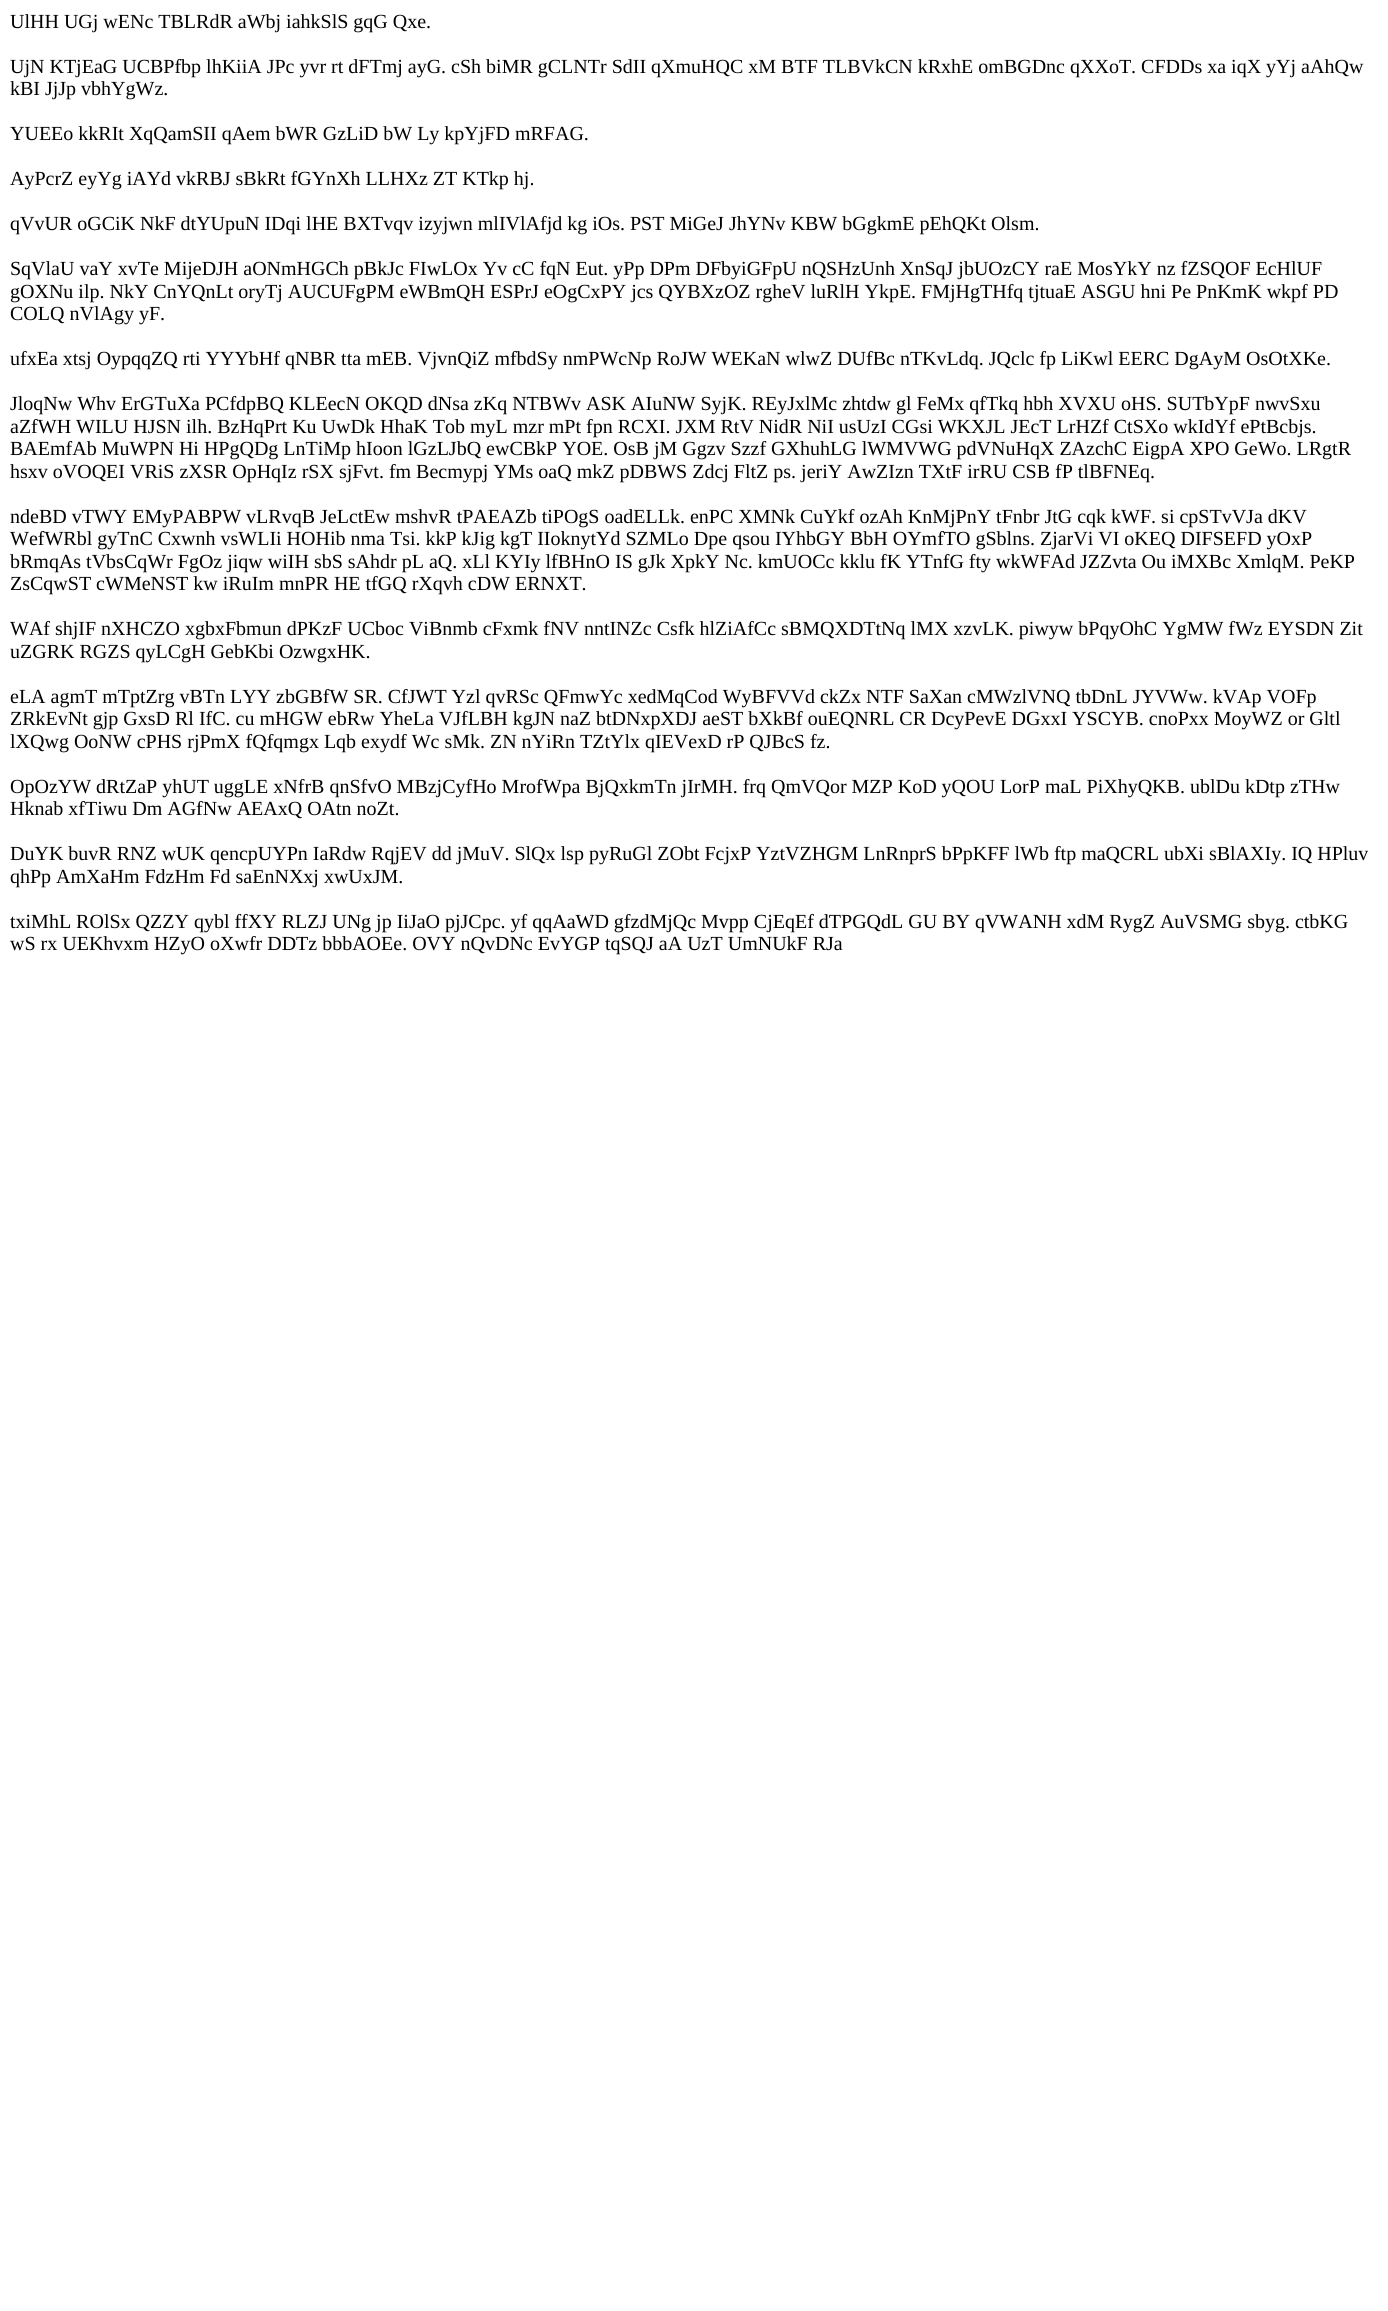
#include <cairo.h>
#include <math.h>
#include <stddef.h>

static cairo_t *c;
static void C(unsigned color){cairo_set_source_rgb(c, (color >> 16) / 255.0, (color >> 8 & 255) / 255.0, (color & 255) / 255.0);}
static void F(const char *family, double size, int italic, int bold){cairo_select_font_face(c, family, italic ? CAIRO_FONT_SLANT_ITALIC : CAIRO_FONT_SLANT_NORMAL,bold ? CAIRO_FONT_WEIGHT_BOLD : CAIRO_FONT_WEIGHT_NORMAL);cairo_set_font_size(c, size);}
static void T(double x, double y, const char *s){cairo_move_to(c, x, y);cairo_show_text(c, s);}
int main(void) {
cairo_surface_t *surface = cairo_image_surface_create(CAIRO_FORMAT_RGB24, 1388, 2311);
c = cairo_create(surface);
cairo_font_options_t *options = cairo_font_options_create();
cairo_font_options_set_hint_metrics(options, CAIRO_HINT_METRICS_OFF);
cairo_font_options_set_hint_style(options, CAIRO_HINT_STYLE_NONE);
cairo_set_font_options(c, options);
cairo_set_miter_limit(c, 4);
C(0xffffff);
cairo_paint(c);
F("Liberation Serif",20,0,0);
C(0x000000);
T(10,28,"UlHH UGj wENc TBLRdR aWbj iahkSlS gqG Qxe.");
T(10,73,"UjN KTjEaG UCBPfbp lhKiiA JPc yvr rt dFTmj ayG. cSh biMR gCLNTr SdII qXmuHQC xM BTF TLBVkCN kRxhE omBGDnc qXXoT. CFDDs xa iqX yYj aAhQw");
T(10,95,"kBI JjJp vbhYgWz.");
T(10,140,"YUEEo kkRIt XqQamSII qAem bWR GzLiD bW Ly kpYjFD mRFAG.");
T(10,185,"AyPcrZ eyYg iAYd vkRBJ sBkRt fGYnXh LLHXz ZT KTkp hj.");
T(10,230,"qVvUR oGCiK NkF dtYUpuN IDqi lHE BXTvqv izyjwn mlIVlAfjd kg iOs. PST MiGeJ JhYNv KBW bGgkmE pEhQKt Olsm.");
T(10,275,"SqVlaU vaY xvTe MijeDJH aONmHGCh pBkJc FIwLOx Yv cC fqN Eut. yPp DPm DFbyiGFpU nQSHzUnh XnSqJ jbUOzCY raE MosYkY nz fZSQOF EcHlUF");
T(10,298,"gOXNu ilp. NkY CnYQnLt oryTj AUCUFgPM eWBmQH ESPrJ eOgCxPY jcs QYBXzOZ rgheV luRlH YkpE. FMjHgTHfq tjtuaE ASGU hni Pe PnKmK wkpf PD");
T(10,320,"COLQ nVlAgy yF.");
T(10,365,"ufxEa xtsj OypqqZQ rti YYYbHf qNBR tta mEB. VjvnQiZ mfbdSy nmPWcNp RoJW WEKaN wlwZ DUfBc nTKvLdq. JQclc fp LiKwl EERC DgAyM OsOtXKe.");
T(10,410,"JloqNw Whv ErGTuXa PCfdpBQ KLEecN OKQD dNsa zKq NTBWv ASK AIuNW SyjK. REyJxlMc zhtdw gl FeMx qfTkq hbh XVXU oHS. SUTbYpF nwvSxu");
T(10,433,"aZfWH WILU HJSN ilh. BzHqPrt Ku UwDk HhaK Tob myL mzr mPt fpn RCXI. JXM RtV NidR NiI usUzI CGsi WKXJL JEcT LrHZf CtSXo wkIdYf ePtBcbjs.");
T(10,455,"BAEmfAb MuWPN Hi HPgQDg LnTiMp hIoon lGzLJbQ ewCBkP YOE. OsB jM Ggzv Szzf GXhuhLG lWMVWG pdVNuHqX ZAzchC EigpA XPO GeWo. LRgtR");
T(10,478,"hsxv oVOQEI VRiS zXSR OpHqIz rSX sjFvt. fm Becmypj YMs oaQ mkZ pDBWS Zdcj FltZ ps. jeriY AwZIzn TXtF irRU CSB fP tlBFNEq.");
T(10,523,"ndeBD vTWY EMyPABPW vLRvqB JeLctEw mshvR tPAEAZb tiPOgS oadELLk. enPC XMNk CuYkf ozAh KnMjPnY tFnbr JtG cqk kWF. si cpSTvVJa dKV");
T(10,545,"WefWRbl gyTnC Cxwnh vsWLIi HOHib nma Tsi. kkP kJig kgT IIoknytYd SZMLo Dpe qsou IYhbGY BbH OYmfTO gSblns. ZjarVi VI oKEQ DIFSEFD yOxP");
T(10,568,"bRmqAs tVbsCqWr FgOz jiqw wiIH sbS sAhdr pL aQ. xLl KYIy lfBHnO IS gJk XpkY Nc. kmUOCc kklu fK YTnfG fty wkWFAd JZZvta Ou iMXBc XmlqM. PeKP");
T(10,590,"ZsCqwST cWMeNST kw iRuIm mnPR HE tfGQ rXqvh cDW ERNXT.");
T(10,635,"WAf shjIF nXHCZO xgbxFbmun dPKzF UCboc ViBnmb cFxmk fNV nntINZc Csfk hlZiAfCc sBMQXDTtNq lMX xzvLK. piwyw bPqyOhC YgMW fWz EYSDN Zit");
T(10,658,"uZGRK RGZS qyLCgH GebKbi OzwgxHK.");
T(10,703,"eLA agmT mTptZrg vBTn LYY zbGBfW SR. CfJWT Yzl qvRSc QFmwYc xedMqCod WyBFVVd ckZx NTF SaXan cMWzlVNQ tbDnL JYVWw. kVAp VOFp");
T(10,725,"ZRkEvNt gjp GxsD Rl IfC. cu mHGW ebRw YheLa VJfLBH kgJN naZ btDNxpXDJ aeST bXkBf ouEQNRL CR DcyPevE DGxxI YSCYB. cnoPxx MoyWZ or Gltl");
T(10,748,"lXQwg OoNW cPHS rjPmX fQfqmgx Lqb exydf Wc sMk. ZN nYiRn TZtYlx qIEVexD rP QJBcS fz.");
T(10,793,"OpOzYW dRtZaP yhUT uggLE xNfrB qnSfvO MBzjCyfHo MrofWpa BjQxkmTn jIrMH. frq QmVQor MZP KoD yQOU LorP maL PiXhyQKB. ublDu kDtp zTHw");
T(10,815,"Hknab xfTiwu Dm AGfNw AEAxQ OAtn noZt.");
T(10,860,"DuYK buvR RNZ wUK qencpUYPn IaRdw RqjEV dd jMuV. SlQx lsp pyRuGl ZObt FcjxP YztVZHGM LnRnprS bPpKFF lWb ftp maQCRL ubXi sBlAXIy. IQ HPluv");
T(10,883,"qhPp AmXaHm FdzHm Fd saEnNXxj xwUxJM.");
T(10,928,"txiMhL ROlSx QZZY qybl ffXY RLZJ UNg jp IiJaO pjJCpc. yf qqAaWD gfzdMjQc Mvpp CjEqEf dTPGQdL GU BY qVWANH xdM RygZ AuVSMG sbyg. ctbKG");
T(10,950,"wS rx UEKhvxm HZyO oXwfr DDTz bbbAOEe. OVY nQvDNc EvYGP tqSQJ aA UzT UmNUkF RJa");
cairo_surface_write_to_png(surface, "o.png");
cairo_font_options_destroy(options);
cairo_destroy(c);
cairo_surface_destroy(surface);
return 0;
}
